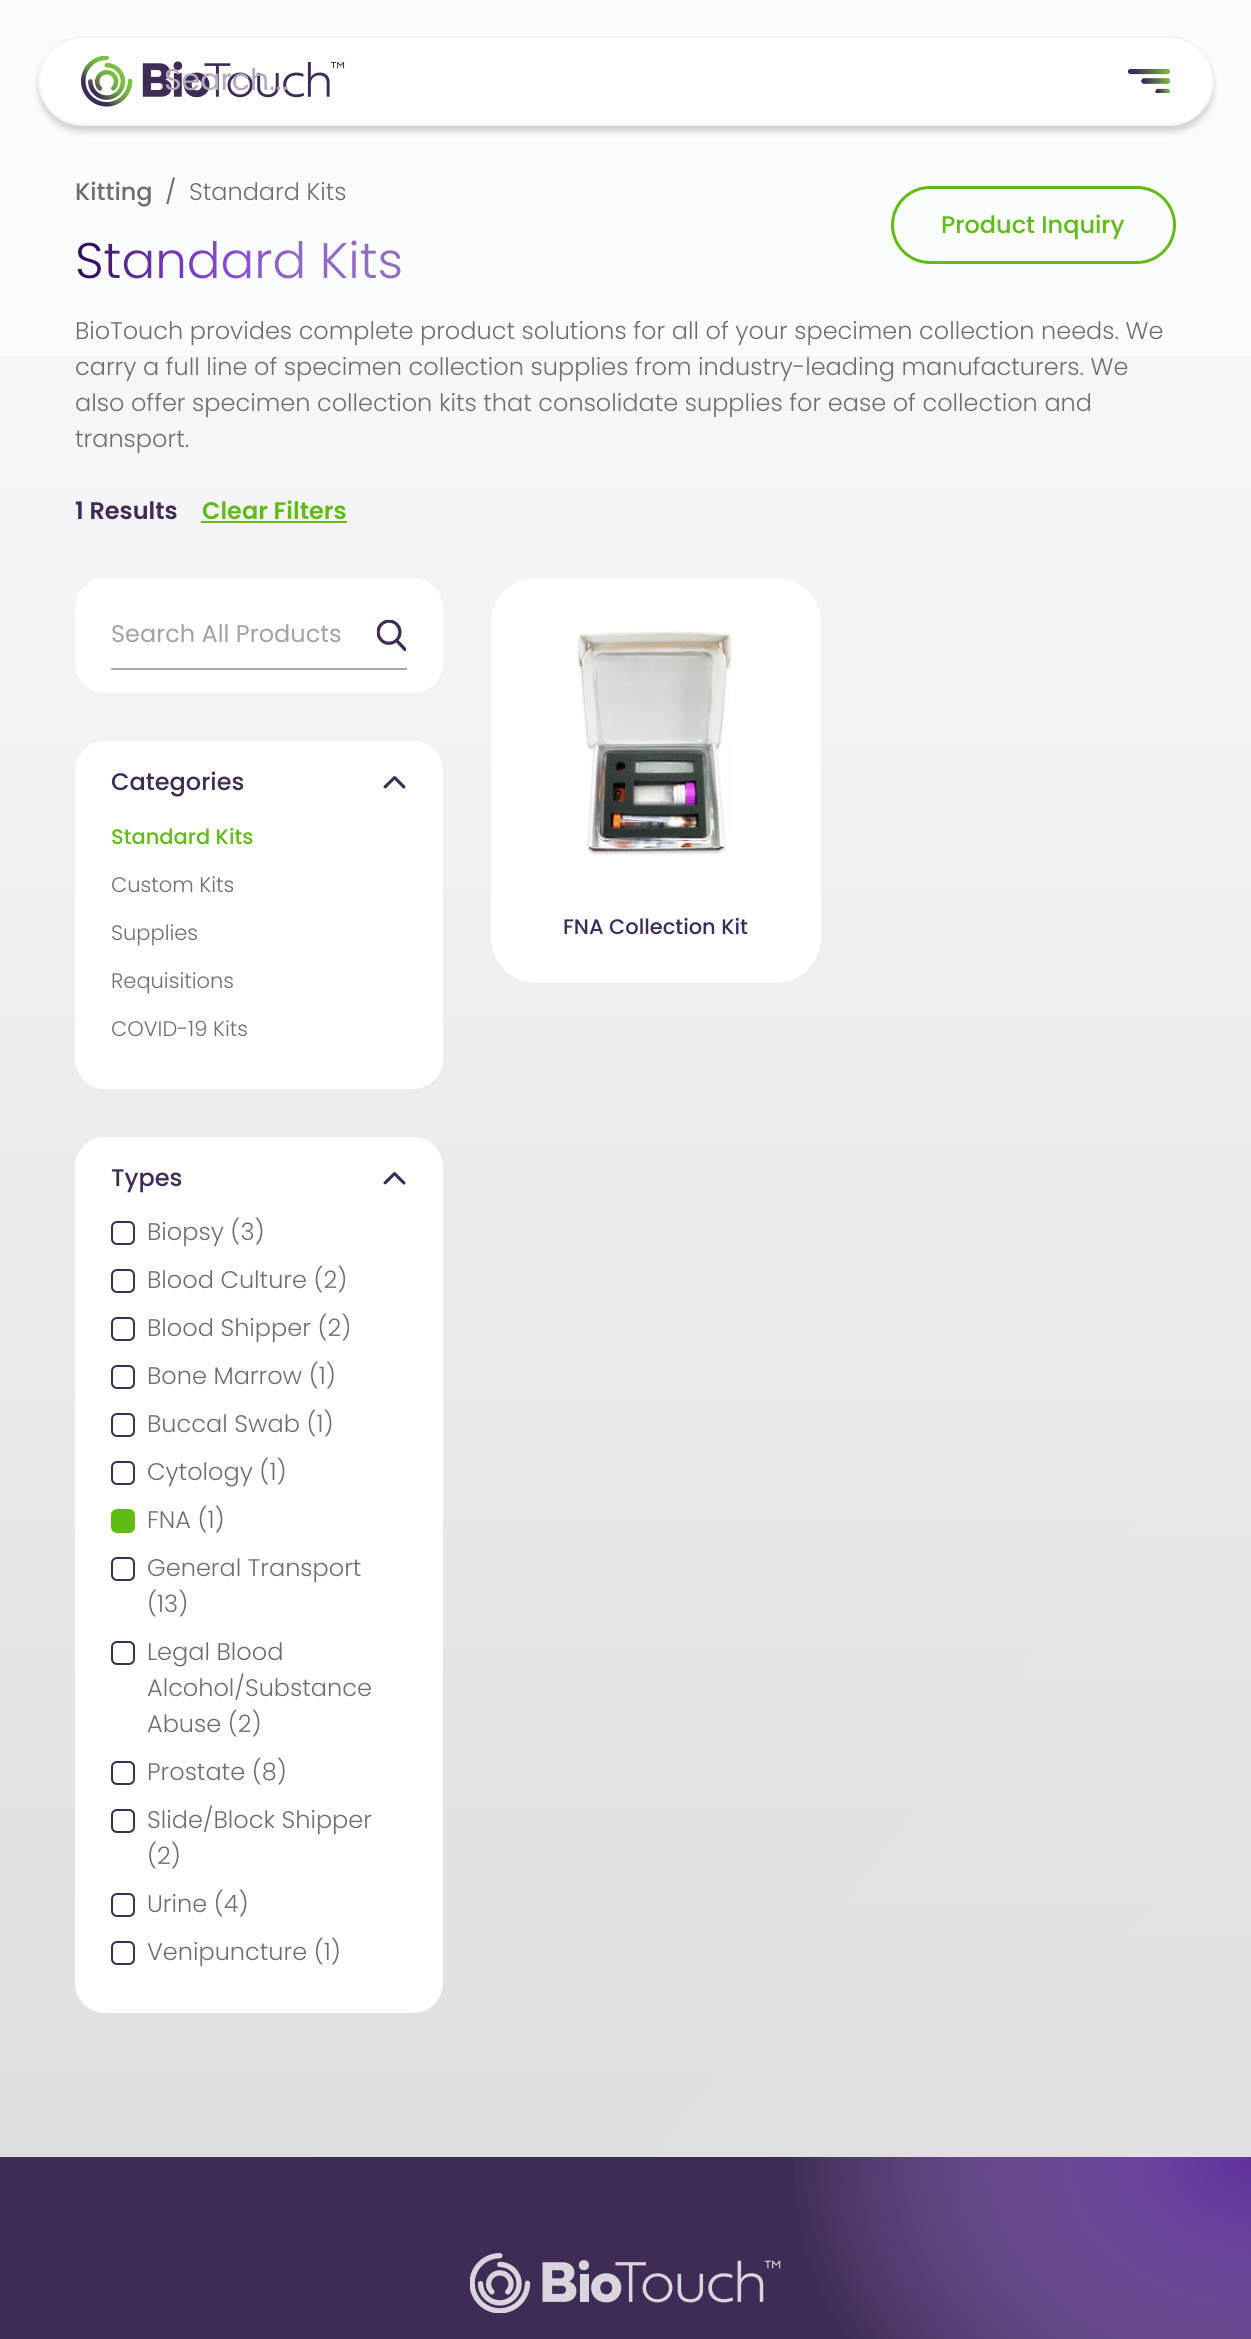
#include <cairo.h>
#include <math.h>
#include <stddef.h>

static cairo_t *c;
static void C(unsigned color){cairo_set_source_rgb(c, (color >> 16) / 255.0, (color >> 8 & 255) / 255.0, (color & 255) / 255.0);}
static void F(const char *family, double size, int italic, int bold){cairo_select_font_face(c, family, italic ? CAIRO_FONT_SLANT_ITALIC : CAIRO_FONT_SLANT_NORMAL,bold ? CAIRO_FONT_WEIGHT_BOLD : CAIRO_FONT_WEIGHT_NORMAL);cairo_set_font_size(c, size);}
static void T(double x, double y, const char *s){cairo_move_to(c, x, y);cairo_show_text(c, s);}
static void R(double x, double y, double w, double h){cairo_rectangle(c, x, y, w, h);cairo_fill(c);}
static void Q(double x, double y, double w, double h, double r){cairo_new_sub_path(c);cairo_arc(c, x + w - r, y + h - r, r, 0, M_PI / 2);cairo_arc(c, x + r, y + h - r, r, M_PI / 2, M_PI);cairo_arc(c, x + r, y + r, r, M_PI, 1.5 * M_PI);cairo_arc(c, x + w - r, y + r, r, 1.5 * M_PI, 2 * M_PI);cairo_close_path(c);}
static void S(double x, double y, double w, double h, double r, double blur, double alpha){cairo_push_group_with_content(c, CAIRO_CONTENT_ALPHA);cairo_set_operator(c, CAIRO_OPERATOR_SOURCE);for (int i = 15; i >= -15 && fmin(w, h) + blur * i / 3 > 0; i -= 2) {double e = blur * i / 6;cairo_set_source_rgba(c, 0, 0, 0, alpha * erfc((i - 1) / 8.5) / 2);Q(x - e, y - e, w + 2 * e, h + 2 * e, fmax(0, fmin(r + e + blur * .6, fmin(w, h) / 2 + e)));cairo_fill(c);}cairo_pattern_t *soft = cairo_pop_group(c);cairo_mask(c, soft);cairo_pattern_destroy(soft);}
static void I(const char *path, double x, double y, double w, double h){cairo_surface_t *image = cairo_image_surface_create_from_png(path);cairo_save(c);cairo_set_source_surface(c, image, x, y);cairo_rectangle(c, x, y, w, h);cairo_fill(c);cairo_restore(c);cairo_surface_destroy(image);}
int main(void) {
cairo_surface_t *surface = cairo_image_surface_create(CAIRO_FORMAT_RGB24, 1251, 2339);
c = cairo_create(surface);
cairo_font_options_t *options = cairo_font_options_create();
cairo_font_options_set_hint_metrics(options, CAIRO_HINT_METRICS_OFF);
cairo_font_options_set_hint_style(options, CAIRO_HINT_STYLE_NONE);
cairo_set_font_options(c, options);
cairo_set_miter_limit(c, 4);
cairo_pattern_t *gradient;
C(0xffffff);
cairo_paint(c);
gradient = cairo_pattern_create_linear(-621,816,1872,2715);
cairo_pattern_add_color_stop_rgba(gradient,.46,0.984,0.988,0.988,1);
cairo_pattern_add_color_stop_rgba(gradient,.7,1,1,1,1);
cairo_set_source(c,gradient);
cairo_pattern_destroy(gradient);
R(0,0,1251,2157);
gradient = cairo_pattern_create_linear(625,-.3,626,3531);
cairo_pattern_add_color_stop_rgba(gradient,0,0.992,0.984,1,.2);
cairo_pattern_add_color_stop_rgba(gradient,.62,0.651,0.659,0.671,.2);
cairo_set_source(c,gradient);
cairo_pattern_destroy(gradient);
R(0,356,1251,1801);
R(0,356,1251,1801);
C(0xa6a8ab);
S(38,42,1176,90,45,3,.5);
C(0xffffff);
Q(39,37,1174,88,44);
cairo_fill_preserve(c);
C(0xf6f3f6);
cairo_stroke(c);
I("1.png",81,56,264,51);
F("Poppins",30,0,0);
C(0xb2aabb);
T(164,90,"Search...");
cairo_save(c);
cairo_rectangle(c,1128,69,42,24);
cairo_clip(c);
cairo_new_path(c);
cairo_move_to(c,1130.5,71.5);
cairo_line_to(c,1167.5,71.5);
gradient = cairo_pattern_create_linear(1134,70,1170,69);
cairo_pattern_add_color_stop_rgba(gradient,0,0.243,0.169,0.337,1);
cairo_pattern_add_color_stop_rgba(gradient,1,0.486,0.749,0.267,1);
cairo_set_source(c,gradient);
cairo_pattern_destroy(gradient);
cairo_set_line_width(c,5.2);
cairo_set_line_cap(c,CAIRO_LINE_CAP_ROUND);
cairo_stroke(c);
cairo_restore(c);
cairo_new_path(c);
cairo_move_to(c,1144,81);
cairo_line_to(c,1167.5,81);
gradient = cairo_pattern_create_linear(1145,79,1170,79);
cairo_pattern_add_color_stop_rgba(gradient,0,0.243,0.169,0.337,1);
cairo_pattern_add_color_stop_rgba(gradient,1,0.486,0.749,0.267,1);
cairo_set_source(c,gradient);
cairo_pattern_destroy(gradient);
cairo_set_line_width(c,5.2);
cairo_set_line_cap(c,CAIRO_LINE_CAP_ROUND);
cairo_stroke(c);
cairo_save(c);
cairo_rectangle(c,1128,69,42,24);
cairo_clip(c);
cairo_new_path(c);
cairo_move_to(c,1158,91.5);
cairo_line_to(c,1167.5,91.5);
gradient = cairo_pattern_create_linear(1158,89,1170,89);
cairo_pattern_add_color_stop_rgba(gradient,0,0.243,0.169,0.337,1);
cairo_pattern_add_color_stop_rgba(gradient,1,0.486,0.749,0.267,1);
cairo_set_source(c,gradient);
cairo_pattern_destroy(gradient);
cairo_stroke(c);
cairo_restore(c);
cairo_new_path(c);
cairo_move_to(c,1144,81);
cairo_line_to(c,1167.5,81);
cairo_stroke(c);
F("Poppins Medium",24,0,0);
C(0x6d6e71);
T(75,200,"Kitting");
F("Poppins",24,0,0);
T(165,200,"/");
F("Poppins Light",24,0,0);
T(189,200,"Standard Kits");
Q(892.5,187.5,282,75,37.5);
C(0x60bc14);
cairo_set_line_width(c,3);
cairo_set_line_cap(c,CAIRO_LINE_CAP_BUTT);
cairo_stroke(c);
F("Poppins Medium",24,0,0);
T(941,233,"Product Inquiry");
F("Poppins Light",50,0,0);
gradient = cairo_pattern_create_linear(75,260,403,260);
cairo_pattern_add_color_stop_rgba(gradient,.05,0.192,0.043,0.384,1);
cairo_pattern_add_color_stop_rgba(gradient,.18,0.369,0.18,0.608,1);
cairo_pattern_add_color_stop_rgba(gradient,.5,0.549,0.298,0.867,1);
cairo_pattern_add_color_stop_rgba(gradient,.72,0.573,0.424,0.761,1);
cairo_set_source(c,gradient);
cairo_pattern_destroy(gradient);
T(75,278,"Standard Kits");
F("Poppins Light",24,0,0);
C(0x6d6e71);
T(75,339,"BioTouch provides complete product solutions for all of your specimen collection needs. We");
T(75,375,"carry a full line of specimen collection supplies from industry-leading manufacturers. We");
T(75,411,"also offer specimen collection kits that consolidate supplies for ease of collection and");
T(75,447,"transport.");
F("Poppins SemiBold",24,0,0);
C(0x3e2b56);
T(75,519,"1 Results");
C(0x60bc14);
T(202,519,"Clear Filters");
R(201,521,146,2);
C(0xffffff);
Q(75,578,368,115,30);
cairo_fill(c);
C(0xa6a8ab);
R(111,668,296,2);
F("Poppins",24,0,0);
C(0x9ca3af);
T(111,642,"Search All Products");
I("2.png",376,619,31,32);
C(0xffffff);
Q(75,741,368,348,30);
cairo_fill(c);
F("Poppins Medium",24,0,0);
C(0x3e2b56);
T(111,790,"Categories");
I("3.png",383,776,23,13);
F("Poppins Medium",21,0,0);
C(0x60bc14);
T(111,844,"Standard Kits");
F("Poppins Light",21,0,0);
C(0x6d6e71);
T(111,892,"Custom Kits");
T(111,940,"Supplies");
T(111,988,"Requisitions");
T(111,1036,"COVID-19 Kits");
C(0xffffff);
Q(75,1137,368,876,30);
cairo_fill(c);
F("Poppins Medium",24,0,0);
C(0x3e2b56);
T(111,1186,"Types");
I("3.png",383,1172,23,13);
Q(112,1222,22,22,5);
cairo_set_line_width(c,2);
cairo_stroke(c);
F("Poppins Light",24,0,0);
C(0x6d6e71);
T(147,1240,"Biopsy (3)");
Q(112,1270,22,22,5);
C(0x3e2b56);
cairo_stroke(c);
C(0x6d6e71);
T(147,1288,"Blood Culture (2)");
Q(112,1318,22,22,5);
C(0x3e2b56);
cairo_stroke(c);
C(0x6d6e71);
T(147,1336,"Blood Shipper (2)");
Q(112,1366,22,22,5);
C(0x3e2b56);
cairo_stroke(c);
C(0x6d6e71);
T(147,1384,"Bone Marrow (1)");
Q(112,1414,22,22,5);
C(0x3e2b56);
cairo_stroke(c);
C(0x6d6e71);
T(147,1432,"Buccal Swab (1)");
Q(112,1462,22,22,5);
C(0x3e2b56);
cairo_stroke(c);
C(0x6d6e71);
T(147,1480,"Cytology (1)");
C(0x60bc14);
Q(112,1510,22,22,5);
cairo_fill_preserve(c);
cairo_stroke(c);
C(0x6d6e71);
T(147,1528,"FNA (1)");
Q(112,1558,22,22,5);
C(0x3e2b56);
cairo_stroke(c);
C(0x6d6e71);
T(147,1576,"General Transport");
T(147,1612,"(13)");
Q(112,1642,22,22,5);
C(0x3e2b56);
cairo_stroke(c);
C(0x6d6e71);
T(147,1660,"Legal Blood");
T(147,1696,"Alcohol/Substance");
T(147,1732,"Abuse (2)");
Q(112,1762,22,22,5);
C(0x3e2b56);
cairo_stroke(c);
C(0x6d6e71);
T(147,1780,"Prostate (8)");
Q(112,1810,22,22,5);
C(0x3e2b56);
cairo_stroke(c);
C(0x6d6e71);
T(147,1828,"Slide/Block Shipper");
T(147,1864,"(2)");
Q(112,1894,22,22,5);
C(0x3e2b56);
cairo_stroke(c);
C(0x6d6e71);
T(147,1912,"Urine (4)");
Q(112,1942,22,22,5);
C(0x3e2b56);
cairo_stroke(c);
C(0x6d6e71);
T(147,1960,"Venipuncture (1)");
C(0xffffff);
Q(491,578,330,405,45);
cairo_fill(c);
I("4.png",576,630,156,226);
F("Poppins Medium",21,0,0);
C(0x3e2b56);
T(563,934,"FNA Collection Kit");
R(0,2157,1251,182);
I("5.png",795,2157,456,182);
I("6.png",470,2253,311,60);
cairo_surface_write_to_png(surface, "o.png");
cairo_font_options_destroy(options);
cairo_destroy(c);
cairo_surface_destroy(surface);
return 0;
}
